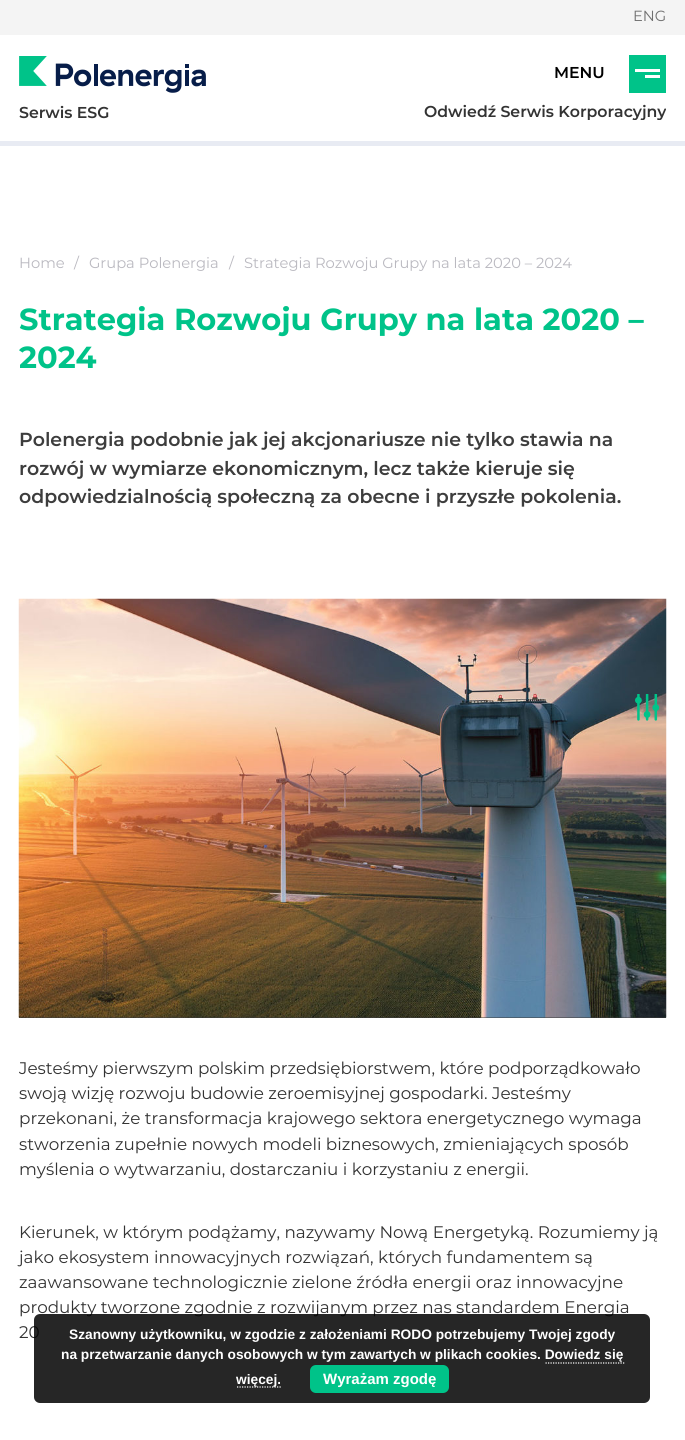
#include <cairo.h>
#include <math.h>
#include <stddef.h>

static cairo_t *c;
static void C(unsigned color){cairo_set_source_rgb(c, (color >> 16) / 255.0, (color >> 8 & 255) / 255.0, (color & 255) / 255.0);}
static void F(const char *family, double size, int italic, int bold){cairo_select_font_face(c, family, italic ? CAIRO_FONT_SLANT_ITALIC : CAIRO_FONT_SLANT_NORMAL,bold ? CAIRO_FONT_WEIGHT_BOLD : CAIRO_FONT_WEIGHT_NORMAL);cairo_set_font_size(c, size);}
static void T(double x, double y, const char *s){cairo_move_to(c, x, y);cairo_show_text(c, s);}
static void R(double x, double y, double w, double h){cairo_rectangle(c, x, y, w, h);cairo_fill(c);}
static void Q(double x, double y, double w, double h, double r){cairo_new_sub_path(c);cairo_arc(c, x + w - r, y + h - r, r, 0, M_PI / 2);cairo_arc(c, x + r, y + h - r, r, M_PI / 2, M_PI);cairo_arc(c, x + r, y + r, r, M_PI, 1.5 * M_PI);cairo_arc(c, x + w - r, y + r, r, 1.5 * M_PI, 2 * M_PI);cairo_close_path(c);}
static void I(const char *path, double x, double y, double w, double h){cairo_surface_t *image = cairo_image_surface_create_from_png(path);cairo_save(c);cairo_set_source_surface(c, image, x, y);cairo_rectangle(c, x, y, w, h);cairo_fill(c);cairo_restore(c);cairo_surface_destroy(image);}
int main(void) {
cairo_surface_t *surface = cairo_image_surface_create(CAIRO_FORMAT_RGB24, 685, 1440);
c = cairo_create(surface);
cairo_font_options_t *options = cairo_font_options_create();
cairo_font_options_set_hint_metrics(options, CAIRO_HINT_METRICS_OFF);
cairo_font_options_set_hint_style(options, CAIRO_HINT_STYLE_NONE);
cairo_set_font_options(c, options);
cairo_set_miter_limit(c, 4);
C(0xffffff);
cairo_paint(c);
C(0xf4f4f4);
R(0,0,685,35);
F("Montserrat",14.7,0,0);
C(0x6f6f6f);
T(633,21,"ENG");
I("1.png",19,56,187,37);
F("Montserrat SemiBold",15.75,0,0);
C(0x333333);
T(19,118,"Serwis ESG");
C(0x00c389);
R(629,55,37,38);
C(0x000000);
T(554,78,"MENU");
C(0xffffff);
R(635,69,25,3);
R(645,75,15,3);
cairo_save(c);
cairo_rectangle(c,293,55,373,65);
cairo_clip(c);
C(0x333333);
T(424,117,"Odwiedź Serwis Korporacyjny");
cairo_restore(c);
C(0xe8ebf3);
R(0,141,685,5);
F("Montserrat",14.7,0,0);
C(0xbab9c0);
T(19,268,"Home");
T(74,268,"/");
T(89,268,"Grupa Polenergia");
T(229,268,"/");
T(244,268,"Strategia Rozwoju Grupy na lata 2020 – 2024");
F("Montserrat",30.45,0,1);
C(0x00c389);
T(19,330,"Strategia Rozwoju Grupy na lata 2020 –");
T(19,368,"2024");
F("Montserrat SemiBold",18.9,0,0);
C(0x3d3d3d);
T(19,446,"Polenergia podobnie jak jej akcjonariusze nie tylko stawia na");
T(19,475,"rozwój w wymiarze ekonomicznym, lecz także kieruje się");
T(19,503,"odpowiedzialnością społeczną za obecne i przyszłe pokolenia.");
R(19,1017,647,1);
I("2.png",18,598,649,420);
I("3.png",635,694,25,27);
F("Montserrat",16.8,0,0);
C(0x333333);
T(19,1074,"Jesteśmy pierwszym polskim przedsiębiorstwem, które podporządkowało");
T(19,1099,"swoją wizję rozwoju budowie zeroemisyjnej gospodarki. Jesteśmy");
T(19,1124,"przekonani, że transformacja krajowego sektora energetycznego wymaga");
T(19,1150,"stworzenia zupełnie nowych modeli biznesowych, zmieniających sposób");
T(19,1175,"myślenia o wytwarzaniu, dostarczaniu i korzystaniu z energii.");
T(19,1238,"Kierunek, w którym podążamy, nazywamy Nową Energetyką. Rozumiemy ją");
T(19,1263,"jako ekosystem innowacyjnych rozwiązań, których fundamentem są");
T(19,1288,"zaawansowane technologicznie zielone źródła energii oraz innowacyjne");
T(19,1313,"produkty tworzone zgodnie z rozwijanym przez nas standardem Energia");
T(19,1338,"20");
cairo_set_source_rgba(c,0,0,0,0.85);
Q(34,1314,616,89,6);
cairo_fill(c);
F("Liberation Sans",13.75,0,1);
C(0xffffff);
T(69,1339,"Szanowny użytkowniku, w zgodzie z założeniami RODO potrzebujemy Twojej zgody");
T(61,1359,"na przetwarzanie danych osobowych w tym zawartych w plikach cookies. Dowiedz się");
cairo_new_path(c);
cairo_move_to(c,237,1387);
cairo_line_to(c,282,1387);
cairo_set_line_width(c,1.2);
cairo_set_dash(c,(double[]){1.25,1.25},2,0);
cairo_stroke(c);
T(236,1384,"więcej.");
cairo_new_path(c);
cairo_move_to(c,545.5,1363);
cairo_line_to(c,624.5,1363);
cairo_stroke(c);
C(0x00c389);
Q(310,1365,139,28,6);
cairo_fill(c);
F("Liberation Sans",15,0,1);
C(0xffffff);
T(323,1384,"Wyrażam zgodę");
cairo_surface_write_to_png(surface, "o.png");
cairo_font_options_destroy(options);
cairo_destroy(c);
cairo_surface_destroy(surface);
return 0;
}
